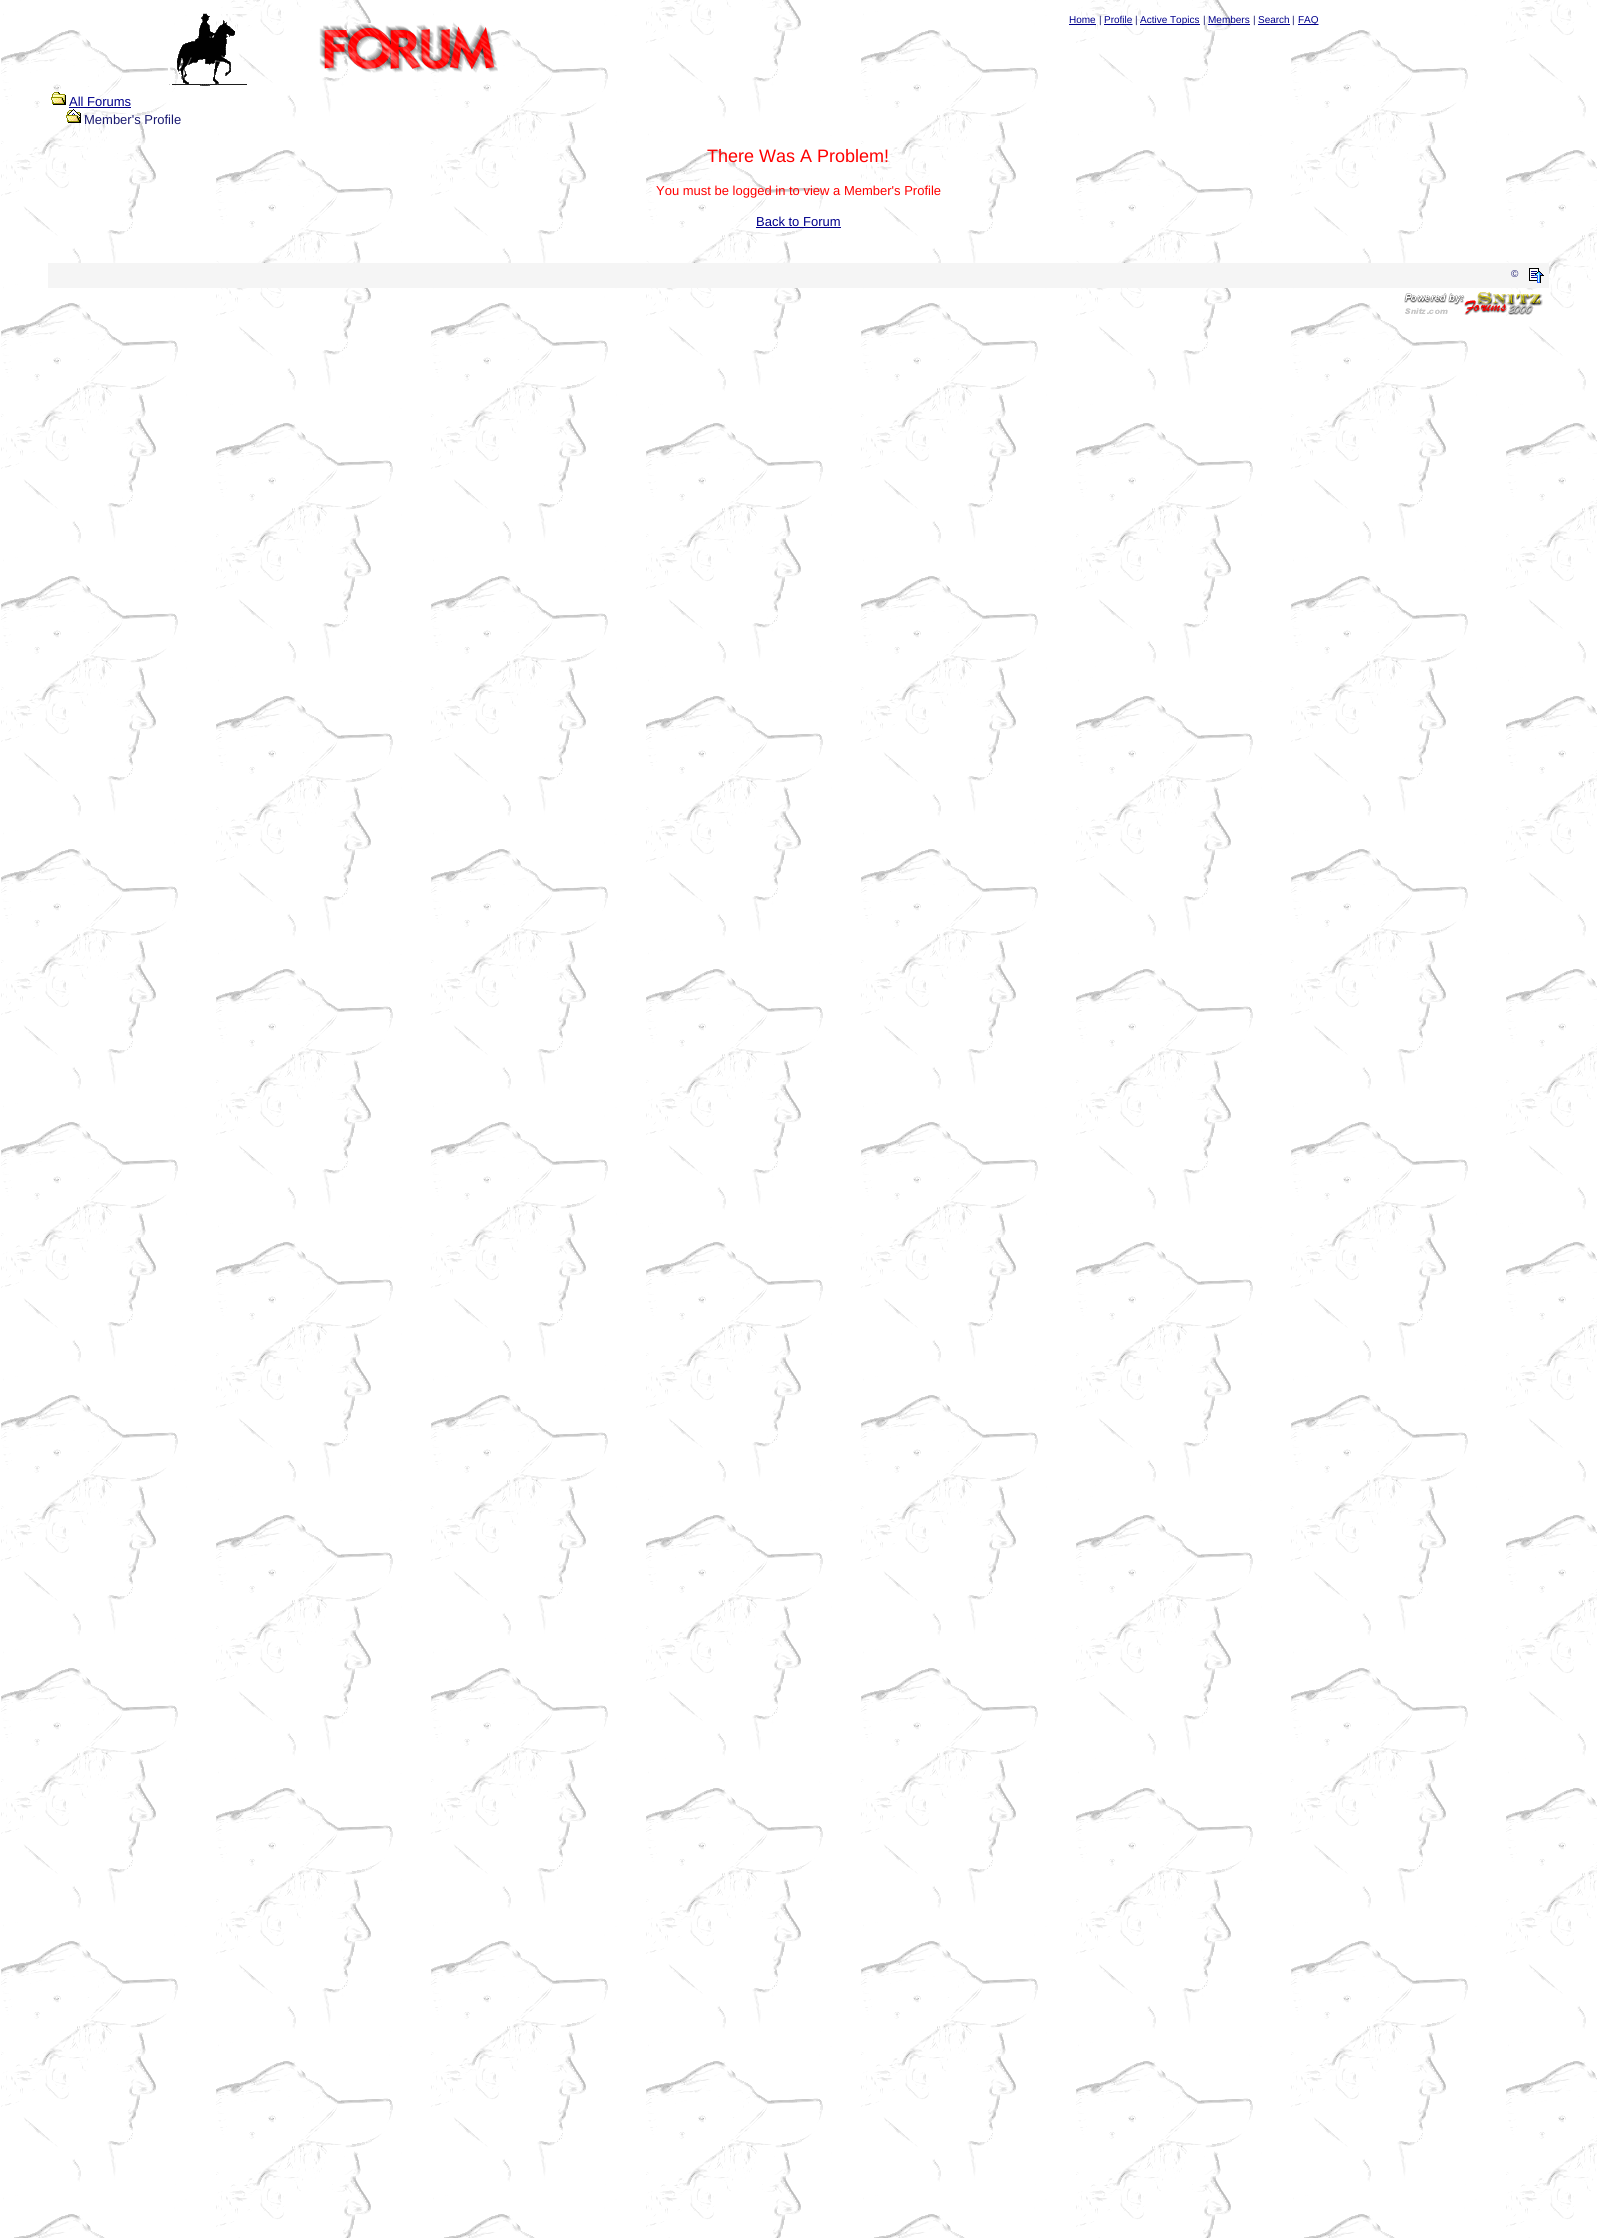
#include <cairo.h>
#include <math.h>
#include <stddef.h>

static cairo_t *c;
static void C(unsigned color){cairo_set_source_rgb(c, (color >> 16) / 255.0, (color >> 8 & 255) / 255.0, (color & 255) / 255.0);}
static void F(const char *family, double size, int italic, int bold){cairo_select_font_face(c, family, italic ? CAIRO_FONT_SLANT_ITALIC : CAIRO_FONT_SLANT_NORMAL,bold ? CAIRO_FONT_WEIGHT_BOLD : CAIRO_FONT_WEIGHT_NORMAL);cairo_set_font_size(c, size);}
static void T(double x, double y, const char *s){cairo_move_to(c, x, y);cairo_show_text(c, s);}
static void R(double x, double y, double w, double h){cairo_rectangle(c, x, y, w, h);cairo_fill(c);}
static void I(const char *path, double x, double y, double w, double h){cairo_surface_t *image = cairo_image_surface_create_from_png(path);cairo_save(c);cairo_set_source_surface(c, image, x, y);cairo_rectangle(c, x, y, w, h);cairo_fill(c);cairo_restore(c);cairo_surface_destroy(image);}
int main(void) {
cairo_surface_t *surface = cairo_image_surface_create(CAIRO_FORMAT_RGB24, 1597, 2238);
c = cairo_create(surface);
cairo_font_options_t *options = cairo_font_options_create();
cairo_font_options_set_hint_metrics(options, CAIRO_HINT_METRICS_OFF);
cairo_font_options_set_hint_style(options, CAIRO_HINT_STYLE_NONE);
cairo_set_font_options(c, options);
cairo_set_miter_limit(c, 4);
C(0xffffff);
cairo_paint(c);
I("1.png",1,0,1596,2238);
I("2.png",168,8,79,80);
I("3.png",319,22,179,51);
F("Liberation Sans",10,0,0);
C(0x00008b);
T(1069,23,"Home");
R(1069,24,27,1);
C(0x191970);
T(1099,23,"|");
C(0x00008b);
T(1104,23,"Profile");
cairo_new_path(c);
cairo_move_to(c,1104,24.5);
cairo_line_to(c,1132.5,24.5);
cairo_set_line_width(c,1);
cairo_set_dash(c,(double[]){1,1},2,0);
cairo_stroke(c);
R(1104,24,28,1);
C(0x191970);
T(1135,23,"|");
C(0x00008b);
R(1140,24,60,1);
T(1140,23,"Active Topics");
C(0x191970);
T(1203,23,"|");
C(0x00008b);
T(1208,23,"Members");
R(1208,24,42,1);
C(0x191970);
T(1253,23,"|");
C(0x00008b);
T(1258,23,"Search");
R(1258,24,32,1);
C(0x191970);
T(1292,23,"|");
cairo_new_path(c);
cairo_move_to(c,1298,24.5);
cairo_line_to(c,1318.5,24.5);
C(0x00008b);
cairo_stroke(c);
R(1298,24,20,1);
T(1298,23,"FAQ");
I("4.png",51,92,15,13);
F("Liberation Sans",13,0,0);
T(69,106,"All Forums");
R(69,107,62,1);
I("5.png",66,109,15,14);
C(0x191970);
T(84,124,"Member's Profile");
F("Liberation Sans",18,0,0);
C(0xff0000);
T(707,162,"There Was A Problem!");
F("Liberation Sans",13,0,0);
T(656,195,"You must be logged in to view a Member's Profile");
C(0x00008b);
T(756,226,"Back to Forum");
R(756,227,85,1);
C(0xf5f5f5);
R(48,263,1501,25);
F("Liberation Sans",10,0,0);
C(0x191970);
T(1511,277,"©");
I("6.png",1529,268,15,15);
I("7.png",1404,292,139,23);
cairo_surface_write_to_png(surface, "o.png");
cairo_font_options_destroy(options);
cairo_destroy(c);
cairo_surface_destroy(surface);
return 0;
}
